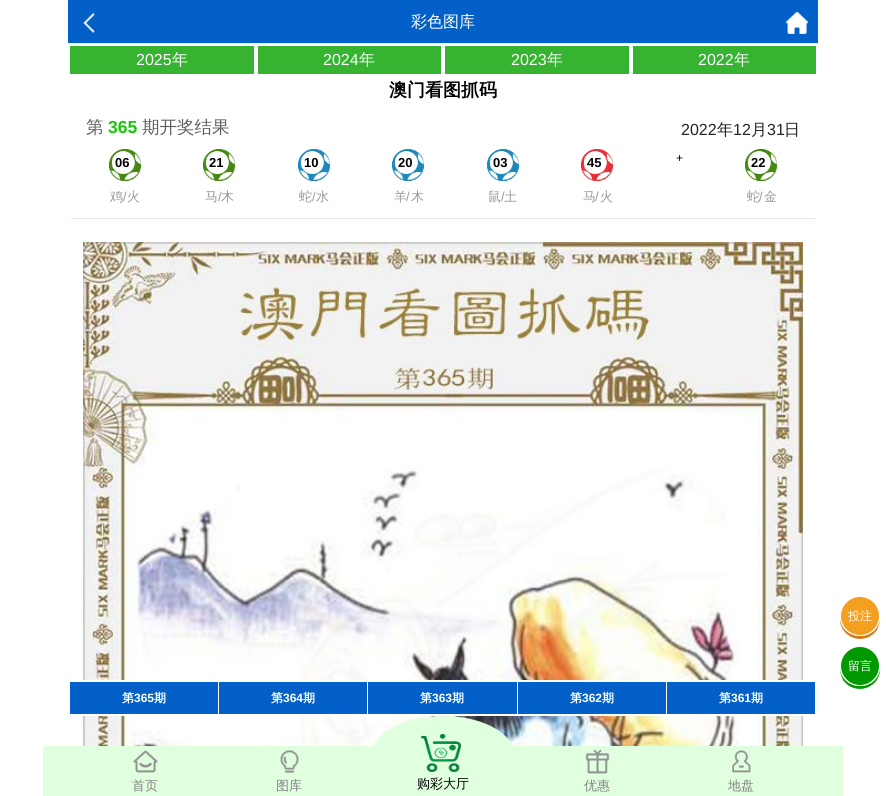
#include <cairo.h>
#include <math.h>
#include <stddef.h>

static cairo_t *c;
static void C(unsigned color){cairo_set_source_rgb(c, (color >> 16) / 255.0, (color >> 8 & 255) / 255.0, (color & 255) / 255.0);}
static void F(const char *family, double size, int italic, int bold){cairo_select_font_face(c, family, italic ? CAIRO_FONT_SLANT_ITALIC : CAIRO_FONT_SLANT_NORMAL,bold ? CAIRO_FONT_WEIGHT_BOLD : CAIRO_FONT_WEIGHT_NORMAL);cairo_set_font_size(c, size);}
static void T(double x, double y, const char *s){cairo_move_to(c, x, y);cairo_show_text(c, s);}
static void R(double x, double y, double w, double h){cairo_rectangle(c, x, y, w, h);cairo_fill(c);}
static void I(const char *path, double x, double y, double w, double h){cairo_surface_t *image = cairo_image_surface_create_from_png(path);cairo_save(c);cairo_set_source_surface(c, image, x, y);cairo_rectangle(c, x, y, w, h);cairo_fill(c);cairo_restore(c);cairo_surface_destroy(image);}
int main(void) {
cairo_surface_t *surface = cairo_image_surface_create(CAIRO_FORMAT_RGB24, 886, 796);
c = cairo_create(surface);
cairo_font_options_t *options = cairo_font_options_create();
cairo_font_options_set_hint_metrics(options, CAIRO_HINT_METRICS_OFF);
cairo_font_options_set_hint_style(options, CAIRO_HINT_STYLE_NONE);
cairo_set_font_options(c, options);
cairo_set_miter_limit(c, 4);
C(0xffffff);
cairo_paint(c);
C(0x0360c8);
R(68,0,750,43);
C(0xefefef);
R(68,43,750,1);
I("1.png",83,13,12,20);
F("WenQuanYi Zen Hei Medium",16,0,0);
C(0xffffff);
T(411,27,"彩色图库");
I("2.png",786,11,22,23);
C(0x35b331);
R(70,46,184,28);
F("Liberation Sans",16,0,0);
C(0xffffff);
T(136,65,"2025");
F("WenQuanYi Zen Hei Medium",16,0,0);
T(172,65,"年");
C(0x35b331);
R(258,46,183,28);
F("Liberation Sans",16,0,0);
C(0xffffff);
T(323,65,"2024");
F("WenQuanYi Zen Hei Medium",16,0,0);
T(359,65,"年");
C(0x35b331);
R(445,46,184,28);
F("Liberation Sans",16,0,0);
C(0xffffff);
T(511,65,"2023");
F("WenQuanYi Zen Hei Medium",16,0,0);
T(547,65,"年");
C(0x35b331);
R(633,46,183,28);
F("Liberation Sans",16,0,0);
C(0xffffff);
T(698,65,"2022");
F("WenQuanYi Zen Hei Medium",16,0,0);
T(734,65,"年");
F("WenQuanYi Zen Hei",18,0,1);
C(0x000000);
T(389,96,"澳门看图抓码");
C(0xe6e6e6);
R(71,218,744,1);
F("WenQuanYi Zen Hei Medium",17.5,0,0);
C(0x5f5f5f);
T(86,133,"第");
F("Liberation Sans",17.5,0,1);
C(0x1cc60e);
T(108,133,"365");
F("WenQuanYi Zen Hei Medium",17.5,0,0);
C(0x5f5f5f);
T(142,133,"期开奖结果");
F("Liberation Sans",16,0,0);
C(0x222222);
T(681,135,"2022");
F("WenQuanYi Zen Hei Medium",16,0,0);
T(717,135,"年");
F("Liberation Sans",16,0,0);
T(733,135,"12");
F("WenQuanYi Zen Hei Medium",16,0,0);
T(751,135,"月");
F("Liberation Sans",16,0,0);
T(767,135,"31");
F("WenQuanYi Zen Hei Medium",16,0,0);
T(784,135,"日");
I("3.png",109,149,32,32);
F("Liberation Sans",13,0,1);
C(0x000000);
T(115,167,"06");
F("WenQuanYi Zen Hei Medium",13,0,0);
C(0x999999);
T(110,201,"鸡 火");
F("Liberation Sans",13,0,0);
T(123,201,"/");
I("3.png",203,149,32,32);
F("Liberation Sans",13,0,1);
C(0x000000);
T(209,167,"21");
F("WenQuanYi Zen Hei Medium",13,0,0);
C(0x999999);
T(205,201,"马");
F("Liberation Sans",13,0,0);
T(218,201,"/");
F("WenQuanYi Zen Hei Medium",13,0,0);
T(221,201,"木");
I("4.png",298,149,32,32);
F("Liberation Sans",13,0,1);
C(0x000000);
T(304,167,"10");
F("WenQuanYi Zen Hei Medium",13,0,0);
C(0x999999);
T(299,201,"蛇");
F("Liberation Sans",13,0,0);
T(312,201,"/");
F("WenQuanYi Zen Hei Medium",13,0,0);
T(316,201,"水");
I("4.png",392,149,32,32);
F("Liberation Sans",13,0,1);
C(0x000000);
T(398,167,"20");
F("WenQuanYi Zen Hei Medium",13,0,0);
C(0x999999);
T(394,201,"羊 木");
F("Liberation Sans",13,0,0);
T(406,201,"/");
I("4.png",487,149,32,32);
F("Liberation Sans",13,0,1);
C(0x000000);
T(493,167,"03");
F("WenQuanYi Zen Hei Medium",13,0,0);
C(0x999999);
T(488,201,"鼠");
F("Liberation Sans",13,0,0);
T(501,201,"/");
F("WenQuanYi Zen Hei Medium",13,0,0);
T(504,201,"土");
I("5.png",581,149,32,32);
F("Liberation Sans",13,0,1);
C(0x000000);
T(587,167,"45");
F("WenQuanYi Zen Hei Medium",13,0,0);
C(0x999999);
T(583,201,"马 火");
F("Liberation Sans",13,0,0);
T(595,201,"/");
F("Liberation Sans",12,0,0);
C(0x000000);
T(676,162,"+");
I("3.png",745,149,32,32);
F("Liberation Sans",13,0,1);
T(751,167,"22");
F("WenQuanYi Zen Hei Medium",13,0,0);
C(0x999999);
T(747,201,"蛇 金");
F("Liberation Sans",13,0,0);
T(759,201,"/");
I("6.png",83,242,720,504);
C(0xffffff);
R(83,680,720,36);
C(0x0360c8);
R(70,682,148,32);
F("WenQuanYi Zen Hei",12,0,1);
C(0xffffff);
T(122,702,"第");
F("Liberation Sans",12,0,1);
T(134,702,"365");
F("WenQuanYi Zen Hei",12,0,1);
T(154,702,"期");
C(0x0360c8);
R(219,682,148,32);
C(0xffffff);
T(271,702,"第");
F("Liberation Sans",12,0,1);
T(283,702,"364");
F("WenQuanYi Zen Hei",12,0,1);
T(303,702,"期");
C(0x0360c8);
R(368,682,149,32);
C(0xffffff);
T(420,702,"第");
F("Liberation Sans",12,0,1);
T(432,702,"363");
F("WenQuanYi Zen Hei",12,0,1);
T(452,702,"期");
C(0x0360c8);
R(518,682,148,32);
C(0xffffff);
T(570,702,"第");
F("Liberation Sans",12,0,1);
T(582,702,"362");
F("WenQuanYi Zen Hei",12,0,1);
T(602,702,"期");
C(0x0360c8);
R(667,682,148,32);
C(0xffffff);
T(719,702,"第");
F("Liberation Sans",12,0,1);
T(731,702,"361");
F("WenQuanYi Zen Hei",12,0,1);
T(751,702,"期");
C(0xd57b1d);
cairo_new_path(c);
cairo_move_to(c,840,618);
cairo_curve_to(c,839,638,865,647,877,630);
cairo_curve_to(c,879,626,880,622,880,618);
cairo_curve_to(c,878,642,842,642,840,618);
cairo_close_path(c);
cairo_fill(c);
C(0xf39f20);
cairo_arc(c,860,616,19.5,0,2 * M_PI);
cairo_fill_preserve(c);
C(0xffffff);
cairo_set_line_width(c,1);
cairo_stroke(c);
F("WenQuanYi Zen Hei Medium",12,0,0);
T(848,620,"投注");
C(0x009900);
cairo_new_path(c);
cairo_move_to(c,840,668);
cairo_curve_to(c,840,672,841,676,843,680);
cairo_curve_to(c,855,697,881,688,880,668);
cairo_curve_to(c,878,692,842,692,840,668);
cairo_close_path(c);
cairo_fill(c);
cairo_arc(c,860,666,19.5,0,2 * M_PI);
cairo_fill_preserve(c);
C(0xffffff);
cairo_stroke(c);
T(848,670,"留言");
C(0xe0ffdf);
R(43,746,800,50);
I("7.png",133,750,25,23);
F("WenQuanYi Zen Hei Medium",13,0,0);
C(0x828282);
T(132,790,"首页");
I("8.png",280,750,19,23);
T(276,790,"图库");
C(0xe0ffdf);
cairo_new_path(c);
cairo_move_to(c,443,716);
cairo_curve_to(c,483,716,515,734,515,756);
cairo_curve_to(c,515,778,483,796,443,796);
cairo_curve_to(c,403,796,371,778,371,756);
cairo_curve_to(c,371,734,403,716,443,716);
cairo_close_path(c);
cairo_fill(c);
I("9.png",421,734,40,38);
C(0x000000);
T(417,788,"购彩大厅");
I("10.png",585,749,25,25);
C(0x828282);
T(584,790,"优惠");
I("11.png",732,750,19,23);
T(728,790,"地盘");
cairo_surface_write_to_png(surface, "o.png");
cairo_font_options_destroy(options);
cairo_destroy(c);
cairo_surface_destroy(surface);
return 0;
}
